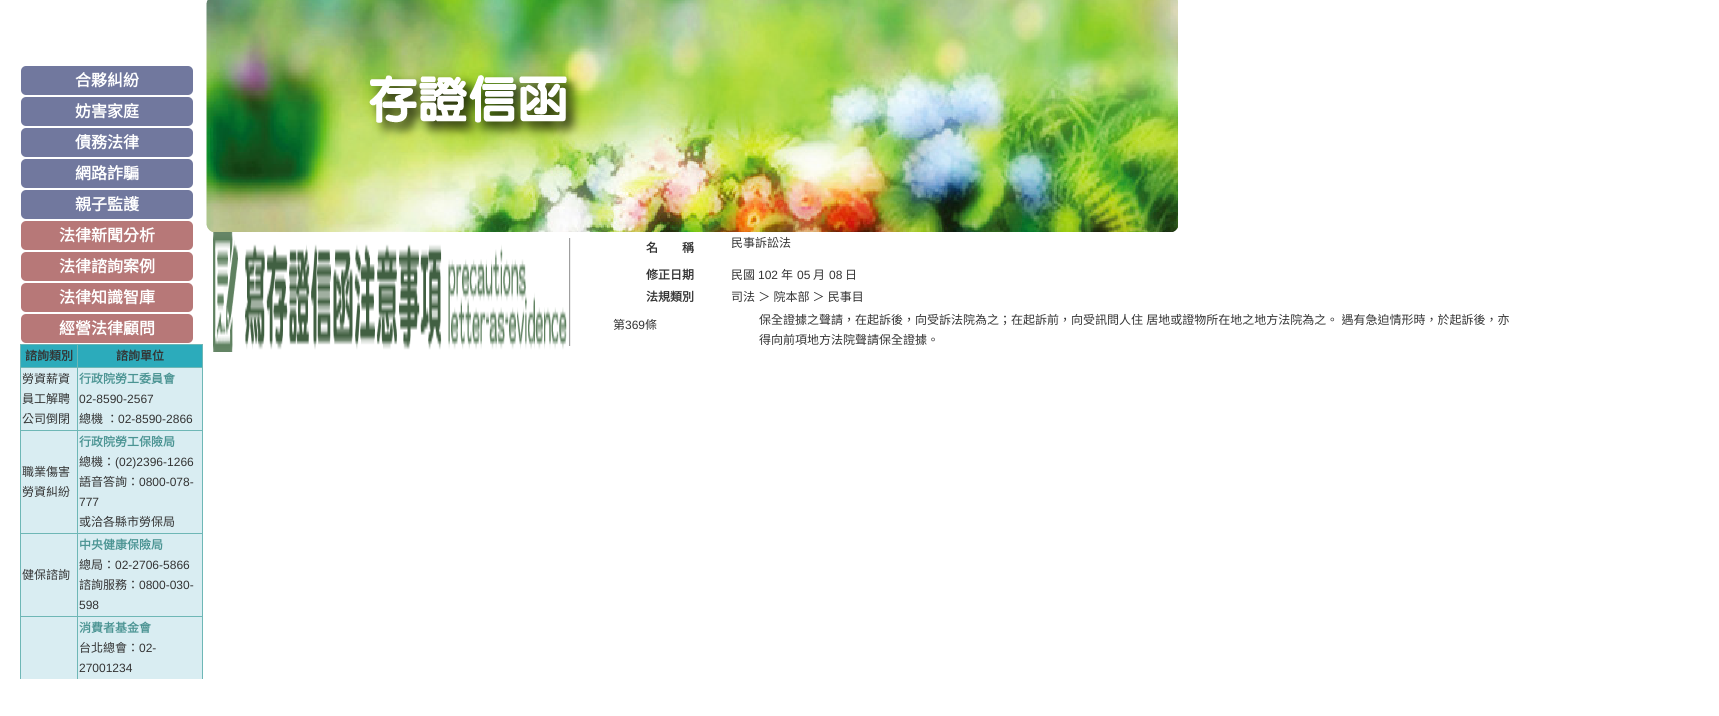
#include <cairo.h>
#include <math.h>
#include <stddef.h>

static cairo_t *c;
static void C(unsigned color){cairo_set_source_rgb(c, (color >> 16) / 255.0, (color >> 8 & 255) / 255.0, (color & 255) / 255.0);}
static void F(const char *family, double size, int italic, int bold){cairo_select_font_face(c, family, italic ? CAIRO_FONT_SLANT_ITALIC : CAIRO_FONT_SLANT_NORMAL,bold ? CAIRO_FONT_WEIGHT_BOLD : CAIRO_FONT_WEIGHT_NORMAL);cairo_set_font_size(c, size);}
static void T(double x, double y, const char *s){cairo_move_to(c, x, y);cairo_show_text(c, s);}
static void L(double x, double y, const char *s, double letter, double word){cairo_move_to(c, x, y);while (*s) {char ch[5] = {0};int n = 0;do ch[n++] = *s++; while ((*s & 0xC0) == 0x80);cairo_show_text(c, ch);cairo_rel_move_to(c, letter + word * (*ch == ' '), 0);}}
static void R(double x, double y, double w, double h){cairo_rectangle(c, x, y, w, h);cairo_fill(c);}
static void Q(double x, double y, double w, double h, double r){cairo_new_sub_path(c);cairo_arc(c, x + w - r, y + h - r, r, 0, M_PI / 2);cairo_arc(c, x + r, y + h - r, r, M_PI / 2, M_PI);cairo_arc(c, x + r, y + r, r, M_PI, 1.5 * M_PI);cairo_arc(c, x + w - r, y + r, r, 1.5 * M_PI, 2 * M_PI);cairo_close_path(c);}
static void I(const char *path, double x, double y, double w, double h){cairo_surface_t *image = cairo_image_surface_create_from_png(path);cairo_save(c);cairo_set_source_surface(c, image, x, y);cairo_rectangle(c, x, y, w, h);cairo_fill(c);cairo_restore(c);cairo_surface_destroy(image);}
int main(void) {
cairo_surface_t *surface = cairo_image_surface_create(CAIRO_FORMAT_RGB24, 1719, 716);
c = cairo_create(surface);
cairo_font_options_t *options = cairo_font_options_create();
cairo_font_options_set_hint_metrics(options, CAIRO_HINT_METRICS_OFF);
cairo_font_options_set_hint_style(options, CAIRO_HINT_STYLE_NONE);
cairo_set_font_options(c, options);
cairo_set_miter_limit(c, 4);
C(0xffffff);
cairo_paint(c);
C(0x71789e);
Q(21,66,172,29,5);
cairo_fill(c);
F("Noto Sans CJK TC",16,0,1);
C(0xffffff);
T(75,86,"合夥糾紛");
C(0x71789e);
Q(21,97,172,29,5);
cairo_fill(c);
C(0xffffff);
T(75,117,"妨害家庭");
C(0x71789e);
Q(21,128,172,29,5);
cairo_fill(c);
C(0xffffff);
T(75,148,"債務法律");
C(0x71789e);
Q(21,159,172,29,5);
cairo_fill(c);
C(0xffffff);
T(75,179,"網路詐騙");
C(0x71789e);
Q(21,190,172,29,5);
cairo_fill(c);
C(0xffffff);
T(75,210,"親子監護");
C(0xb77878);
Q(21,221,172,29,5);
cairo_fill(c);
C(0xffffff);
T(59,241,"法律新聞分析");
C(0xb77878);
Q(21,252,172,29,5);
cairo_fill(c);
C(0xffffff);
T(59,272,"法律諮詢案例");
C(0xb77878);
Q(21,283,172,29,5);
cairo_fill(c);
C(0xffffff);
T(59,303,"法律知識智庫");
C(0xb77878);
Q(21,314,172,29,5);
cairo_fill(c);
C(0xffffff);
T(59,334,"經營法律顧問");
C(0xd9edf2);
R(21,368,181,311);
C(0x2cabbb);
R(21,345,181,22);
C(0x6eb7b6);
R(77,344,126,1);
R(77,367,126,1);
R(77,430,126,1);
R(77,533,126,1);
R(77,616,126,1);
R(77,616,1,63);
R(20,616,58,1);
R(77,533,1,84);
R(20,533,58,1);
R(77,430,1,104);
R(20,430,58,1);
R(77,367,1,64);
R(20,367,58,1);
R(77,344,1,24);
R(20,344,58,1);
R(20,616,1,63);
R(20,533,1,84);
R(20,430,1,104);
R(20,367,1,64);
R(20,344,1,24);
F("Noto Sans CJK TC",12,0,1);
C(0x333333);
T(25,360,"諮詢類別");
C(0x6eb7b6);
R(202,616,1,63);
R(202,533,1,84);
R(202,430,1,104);
R(202,367,1,64);
R(202,344,1,24);
C(0x333333);
T(116,360,"諮詢單位");
F("Noto Sans CJK TC",12,0,0);
T(22,383,"勞資薪資");
T(22,403,"員工解聘");
T(22,423,"公司倒閉");
F("Noto Sans CJK TC",12,0,1);
C(0x4b9493);
T(79,383,"行政院勞工委員會");
F("Liberation Sans",12,0,0);
C(0x333333);
T(79,403,"02-8590-2567");
F("Noto Sans CJK TC",12,0,0);
L(79,423,"總機 ：",0,.5);
F("Liberation Sans",12,0,0);
T(118,423,"02-8590-2866");
F("Noto Sans CJK TC",12,0,0);
T(22,476,"職業傷害");
T(22,496,"勞資糾紛");
F("Noto Sans CJK TC",12,0,1);
C(0x4b9493);
T(79,446,"行政院勞工保險局");
F("Noto Sans CJK TC",12,0,0);
C(0x333333);
T(79,466,"總機：");
F("Liberation Sans",12,0,0);
T(115,466,"(02)2396-1266");
F("Noto Sans CJK TC",12,0,0);
T(79,486,"語音答詢：");
F("Liberation Sans",12,0,0);
T(139,486,"0800-078-");
T(79,506,"777");
F("Noto Sans CJK TC",12,0,0);
T(79,526,"或洽各縣市勞保局");
T(22,579,"健保諮詢");
F("Noto Sans CJK TC",12,0,1);
C(0x4b9493);
T(79,549,"中央健康保險局");
F("Noto Sans CJK TC",12,0,0);
C(0x333333);
T(79,569,"總局：");
F("Liberation Sans",12,0,0);
T(115,569,"02-2706-5866");
F("Noto Sans CJK TC",12,0,0);
T(79,589,"諮詢服務：");
F("Liberation Sans",12,0,0);
T(139,589,"0800-030-");
T(79,609,"598");
F("Noto Sans CJK TC",12,0,1);
C(0x4b9493);
T(79,632,"消費者基金會");
F("Noto Sans CJK TC",12,0,0);
C(0x333333);
T(79,652,"台北總會：");
F("Liberation Sans",12,0,0);
T(139,652,"02-");
T(79,672,"27001234");
I("1.png",206,0,972,232);
I("2.png",213,232,354,120);
C(0xeeeeee);
R(570,238,1,108);
R(569,345,2,1);
C(0x9f9f9f);
R(569,238,1,108);
F("Noto Sans CJK TC",12,0,1);
C(0x333333);
T(646,252,"名　　稱");
F("Noto Sans CJK TC",12,0,0);
T(731,247,"民事訴訟法");
F("Noto Sans CJK TC",12,0,1);
T(646,279,"修正日期");
F("Noto Sans CJK TC",12,0,0);
T(731,279,"民國");
F("Liberation Sans",12,0,0);
T(758,279,"102");
F("Noto Sans CJK TC",12,0,0);
T(781,279,"年");
F("Liberation Sans",12,0,0);
T(797,279,"05");
F("Noto Sans CJK TC",12,0,0);
T(813,279,"月");
F("Liberation Sans",12,0,0);
T(829,279,"08");
F("Noto Sans CJK TC",12,0,0);
T(845,279,"日");
F("Noto Sans CJK TC",12,0,1);
T(646,301,"法規類別");
F("Noto Sans CJK TC",12,0,0);
L(731,301,"司法 ＞ 院本部 ＞ 民事目",0,.5);
T(613,329,"第");
F("Liberation Sans",12,0,0);
T(625,329,"369");
F("Noto Sans CJK TC",12,0,0);
T(645,329,"條");
L(759,324,"保全證據之聲請，在起訴後，向受訴法院為之；在起訴前，向受訊問人住 居地或證物所在地之地方法院為之。 遇有急迫情形時，於起訴後，亦",0,.5);
T(759,344,"得向前項地方法院聲請保全證據。");
cairo_surface_write_to_png(surface, "o.png");
cairo_font_options_destroy(options);
cairo_destroy(c);
cairo_surface_destroy(surface);
return 0;
}
